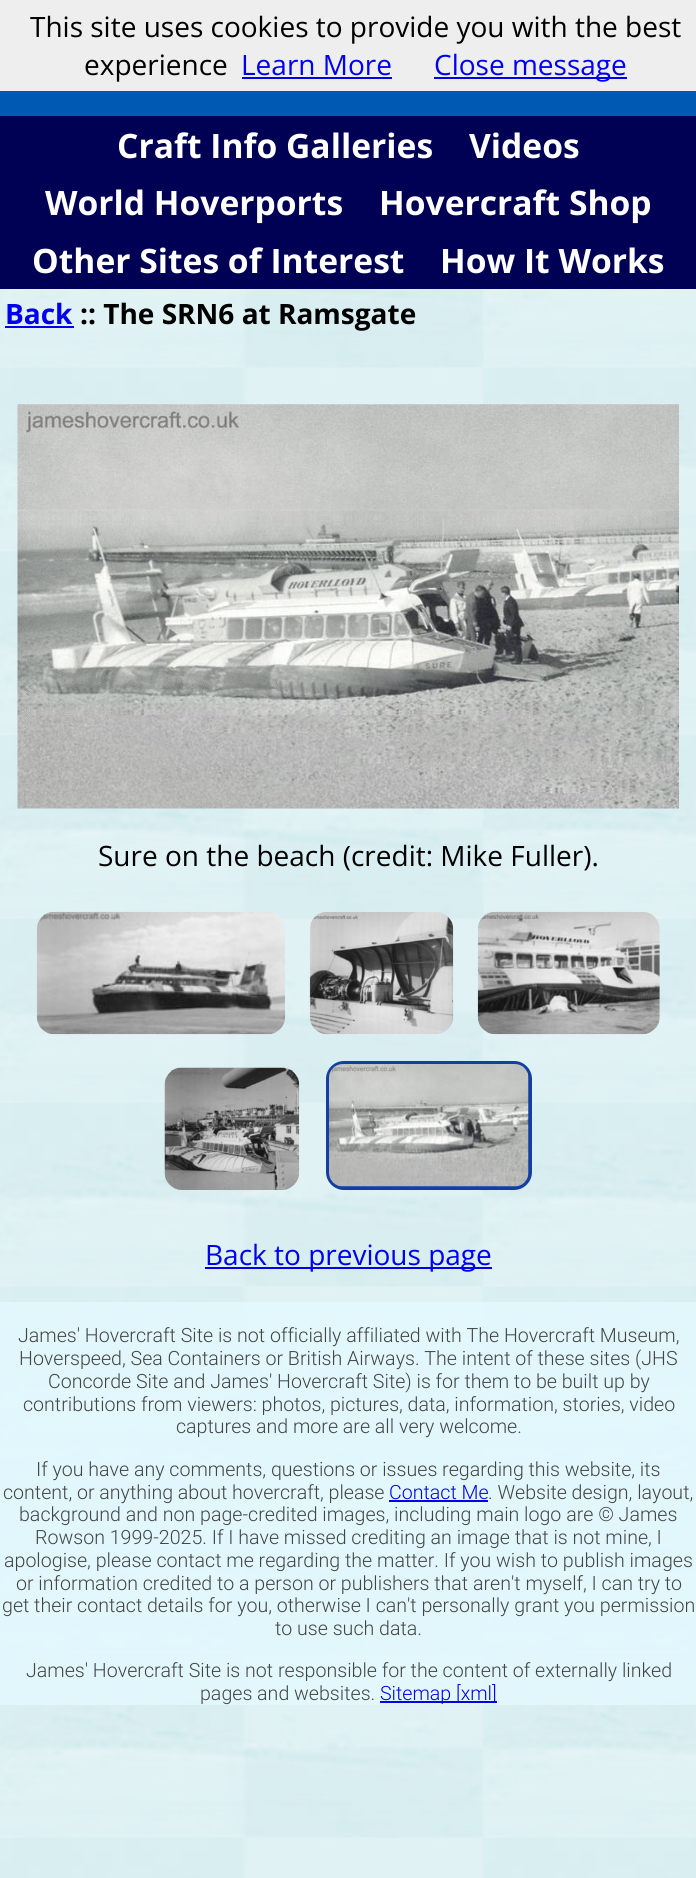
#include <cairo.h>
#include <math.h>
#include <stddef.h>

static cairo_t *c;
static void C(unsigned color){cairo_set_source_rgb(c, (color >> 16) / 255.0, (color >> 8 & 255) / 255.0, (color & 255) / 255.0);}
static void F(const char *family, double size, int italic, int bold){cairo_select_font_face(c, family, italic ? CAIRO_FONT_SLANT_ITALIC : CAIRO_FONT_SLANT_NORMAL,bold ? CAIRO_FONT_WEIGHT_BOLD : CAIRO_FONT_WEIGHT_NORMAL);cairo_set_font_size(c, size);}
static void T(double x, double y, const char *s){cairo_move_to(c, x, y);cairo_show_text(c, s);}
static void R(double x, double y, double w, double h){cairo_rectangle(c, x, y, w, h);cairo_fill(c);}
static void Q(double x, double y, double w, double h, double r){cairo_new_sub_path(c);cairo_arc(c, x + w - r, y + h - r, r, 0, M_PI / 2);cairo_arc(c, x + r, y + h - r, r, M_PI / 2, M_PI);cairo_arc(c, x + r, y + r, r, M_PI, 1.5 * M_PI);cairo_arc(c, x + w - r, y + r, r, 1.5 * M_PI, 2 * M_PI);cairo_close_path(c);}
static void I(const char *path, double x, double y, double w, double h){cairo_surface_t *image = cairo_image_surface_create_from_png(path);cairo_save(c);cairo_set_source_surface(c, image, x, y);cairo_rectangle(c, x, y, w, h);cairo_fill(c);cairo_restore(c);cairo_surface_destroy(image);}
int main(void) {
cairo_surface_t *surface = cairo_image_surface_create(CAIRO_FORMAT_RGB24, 696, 1878);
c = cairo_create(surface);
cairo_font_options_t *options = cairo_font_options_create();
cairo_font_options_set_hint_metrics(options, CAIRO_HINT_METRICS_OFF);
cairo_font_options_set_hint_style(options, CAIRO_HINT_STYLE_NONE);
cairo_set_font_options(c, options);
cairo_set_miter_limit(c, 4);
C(0xffffff);
cairo_paint(c);
I("1.png",0,289,696,1589);
C(0xeeeeee);
R(0,0,696,91);
F("Open Sans",28,0,0);
C(0x000000);
T(30,37,"This site uses cookies to provide you with the best");
T(84,75,"experience");
C(0x0000ee);
T(241,75,"Learn More");
R(242,77,150,2);
R(434,77,193,2);
T(434,75,"Close message");
C(0x0059b3);
R(0,91,696,25);
C(0x000055);
R(0,116,696,173);
F("Open Sans",33.6,0,1);
C(0xffffff);
T(117,158,"Craft Info Galleries");
T(469,158,"Videos");
T(45,215,"World Hoverports");
T(379,215,"Hovercraft Shop");
T(32,273,"Other Sites of Interest");
T(440,273,"How It Works");
F("Open Sans",28,0,1);
C(0x0000ee);
T(5,324,"Back");
R(5,326,69,2);
C(0x000000);
T(80,324,":: The SRN6 at Ramsgate");
I("2.png",17,404,662,405);
F("Open Sans",28,0,0);
T(98,866,"Sure on the beach (credit: Mike Fuller).");
I("3.png",36,911,250,124);
I("4.png",309,912,145,123);
I("5.png",477,911,183,124);
I("6.png",164,1067,136,123);
Q(328,1063,202,125,16);
C(0x133fa2);
cairo_set_line_width(c,4);
cairo_stroke(c);
I("7.png",329,1064,200,123);
C(0x0000ee);
R(205,1267,287,2);
T(205,1265,"Back to previous page");
cairo_set_source_rgba(c,0.89,0.976,1,0.81);
R(0,1302,696,403);
F("Roboto Light",19.6,0,0);
C(0x444444);
T(18,1342,"James' Hovercraft Site is not officially affiliated with The Hovercraft Museum,");
T(19,1365,"Hoverspeed, Sea Containers or British Airways. The intent of these sites (JHS");
T(48,1388,"Concorde Site and James' Hovercraft Site) is for them to be built up by");
T(23,1411,"contributions from viewers: photos, pictures, data, information, stories, video");
T(176,1433,"captures and more are all very welcome.");
T(36,1476,"If you have any comments, questions or issues regarding this website, its");
T(3,1499,"content, or anything about hovercraft, please");
C(0x0000ee);
T(389,1499,"Contact Me");
R(389,1500,99,2);
C(0x444444);
T(488,1499,". Website design, layout,");
T(19,1521,"background and non page-credited images, including main logo are © James");
T(35,1544,"Rowson 1999-2025. If I have missed crediting an image that is not mine, I");
T(4,1567,"apologise, please contact me regarding the matter. If you wish to publish images");
T(16,1590,"or information credited to a person or publishers that aren't myself, I can try to");
T(2,1612,"get their contact details for you, otherwise I can't personally grant you permission");
T(275,1635,"to use such data.");
T(26,1677,"James' Hovercraft Site is not responsible for the content of externally linked");
T(200,1700,"pages and websites.");
C(0x0000ee);
R(380,1701,117,2);
T(380,1700,"Sitemap [xml]");
cairo_surface_write_to_png(surface, "o.png");
cairo_font_options_destroy(options);
cairo_destroy(c);
cairo_surface_destroy(surface);
return 0;
}
